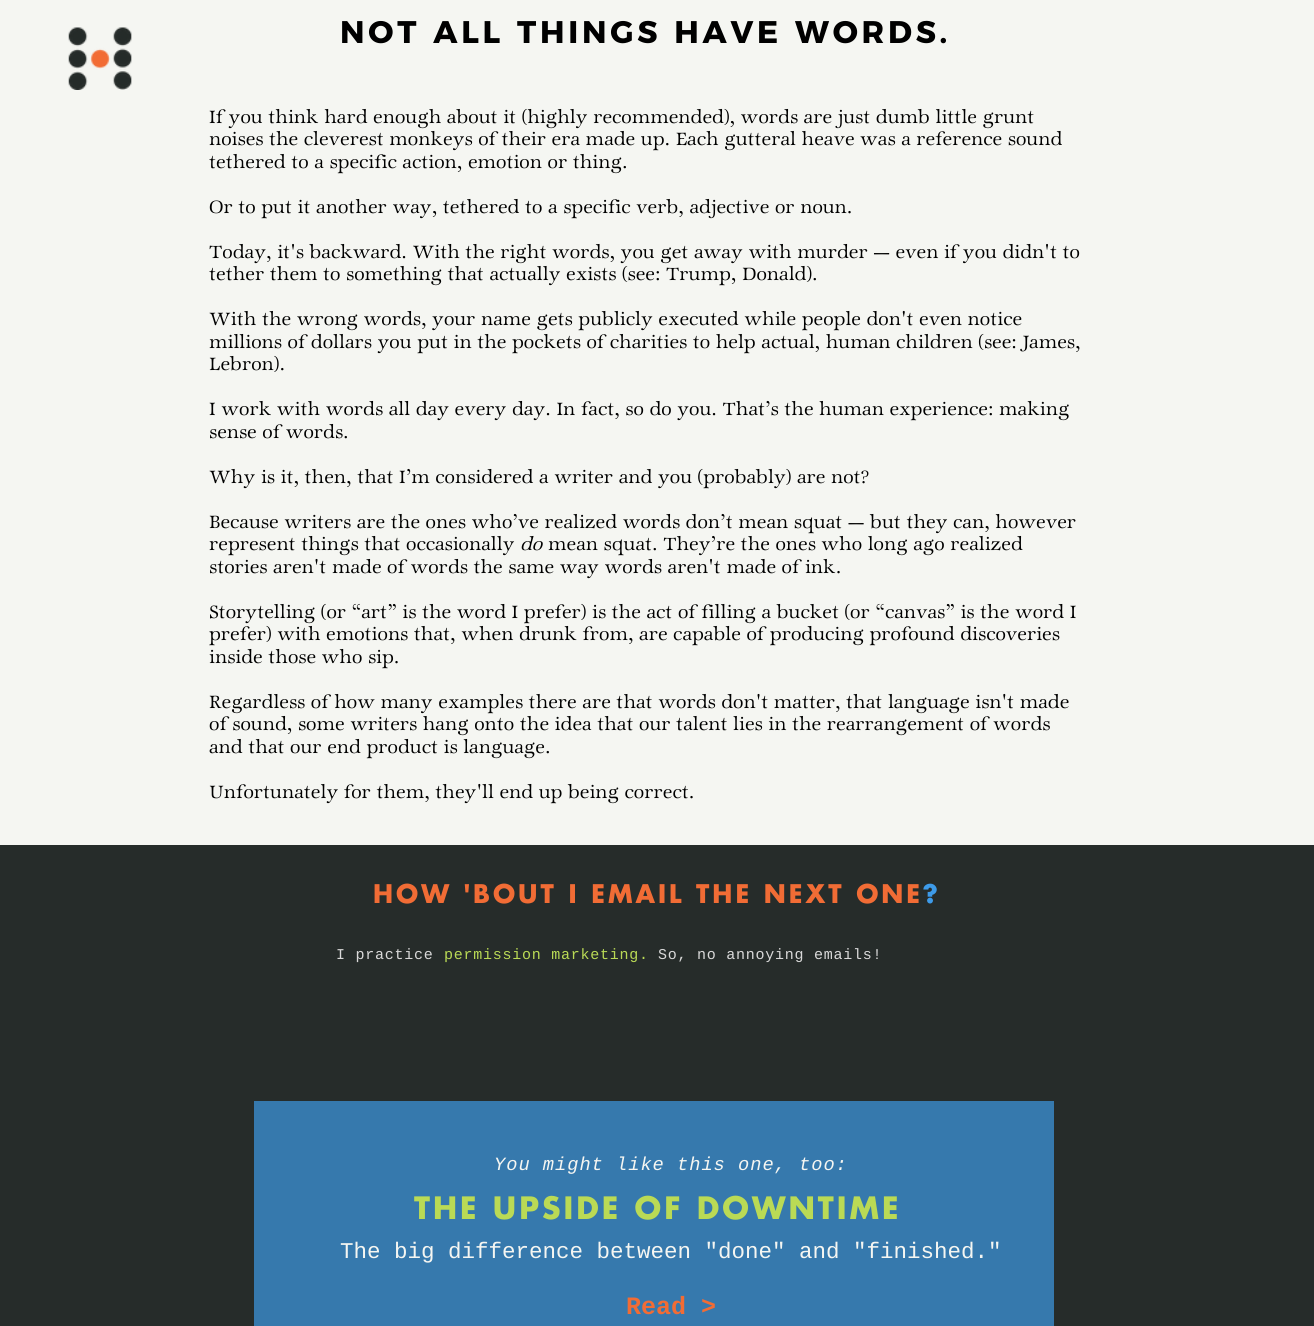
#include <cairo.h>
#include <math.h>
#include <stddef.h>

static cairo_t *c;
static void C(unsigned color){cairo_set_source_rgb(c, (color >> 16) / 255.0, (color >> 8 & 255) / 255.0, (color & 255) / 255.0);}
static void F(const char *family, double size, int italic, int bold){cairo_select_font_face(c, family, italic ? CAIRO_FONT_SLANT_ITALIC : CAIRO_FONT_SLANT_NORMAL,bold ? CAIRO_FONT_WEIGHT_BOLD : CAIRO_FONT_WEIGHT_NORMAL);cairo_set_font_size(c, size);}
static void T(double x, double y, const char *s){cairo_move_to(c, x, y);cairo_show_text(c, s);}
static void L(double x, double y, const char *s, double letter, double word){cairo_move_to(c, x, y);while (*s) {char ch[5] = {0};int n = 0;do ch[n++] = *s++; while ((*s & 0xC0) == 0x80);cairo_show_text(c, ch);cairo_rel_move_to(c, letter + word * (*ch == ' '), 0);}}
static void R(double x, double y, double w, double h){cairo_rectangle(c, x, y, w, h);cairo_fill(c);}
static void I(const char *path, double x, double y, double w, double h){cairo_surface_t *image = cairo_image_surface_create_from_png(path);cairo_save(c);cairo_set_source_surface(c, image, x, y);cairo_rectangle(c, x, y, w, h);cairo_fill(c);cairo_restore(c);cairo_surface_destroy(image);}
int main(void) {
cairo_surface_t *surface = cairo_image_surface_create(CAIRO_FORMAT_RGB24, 1314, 1326);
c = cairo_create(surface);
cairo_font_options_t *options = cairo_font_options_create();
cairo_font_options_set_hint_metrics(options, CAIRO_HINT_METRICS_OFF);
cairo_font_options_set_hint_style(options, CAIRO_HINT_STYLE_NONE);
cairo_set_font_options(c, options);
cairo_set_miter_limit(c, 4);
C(0xf5f6f2);
cairo_paint(c);
I("1.png",68,27,64,63);
F("Montserrat",31.25,0,1);
C(0x000000);
L(340,43,"NOT ALL THINGS HAVE WORDS.",3.75,0);
F("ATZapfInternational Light",20,0,0);
T(209,123,"If you think hard enough about it (highly recommended), words are just dumb little grunt");
T(209,145,"noises the cleverest monkeys of their era made up. Each gutteral heave was a reference sound");
T(209,168,"tethered to a specific action, emotion or thing.");
T(209,213,"Or to put it another way, tethered to a specific verb, adjective or noun.");
T(209,258,"Today, it's backward. With the right words, you get away with murder — even if you didn't to");
T(209,280,"tether them to something that actually exists (see: Trump, Donald).");
T(209,325,"With the wrong words, your name gets publicly executed while people don't even notice");
T(209,348,"millions of dollars you put in the pockets of charities to help actual, human children (see: James,");
T(209,370,"Lebron).");
T(209,415,"I work with words all day every day. In fact, so do you. That’s the human experience: making");
T(209,438,"sense of words.");
T(209,483,"Why is it, then, that I’m considered a writer and you (probably) are not?");
T(209,528,"Because writers are the ones who’ve realized words don’t mean squat — but they can, however");
T(209,550,"represent things that occasionally");
F("ATZapfInternational Light",20,1,0);
T(520,550,"do");
F("ATZapfInternational Light",20,0,0);
T(548,550,"mean squat. They’re the ones who long ago realized");
T(209,573,"stories aren't made of words the same way words aren't made of ink.");
T(209,618,"Storytelling (or “art” is the word I prefer) is the act of filling a bucket (or “canvas” is the word I");
T(209,640,"prefer) with emotions that, when drunk from, are capable of producing profound discoveries");
T(209,663,"inside those who sip.");
T(209,708,"Regardless of how many examples there are that words don't matter, that language isn't made");
T(209,730,"of sound, some writers hang onto the idea that our talent lies in the rearrangement of words");
T(209,753,"and that our end product is language.");
T(209,798,"Unfortunately for them, they'll end up being correct.");
C(0x262c2a);
R(0,845,1314,481);
F("Futura",25,0,1);
C(0xf16c35);
L(373,903,"HOW 'BOUT I EMAIL THE NEXT ONE",3,0);
C(0x3d9be9);
L(923,903,"?",3,0);
F("Liberation Mono",15,0,0);
C(0xd9d9d9);
L(336,959,"I practice",.75,0);
C(0xbada55);
L(444,959,"permission marketing.",.75,0);
C(0xd9d9d9);
L(658,959,"So, no annoying emails!",.75,0);
C(0x3679ad);
R(254,1101,800,225);
F("Liberation Mono",18.75,1,0);
C(0xf5f6f2);
L(494,1170,"You might like this one, too:",.95,0);
F("Futura",30,0,1);
C(0xbada55);
L(414,1219,"THE UPSIDE OF DOWNTIME",3,0);
F("Liberation Mono",22.5,0,0);
C(0xf5f6f2);
T(340,1258,"The big difference between \"done\" and \"finished.\"");
F("Liberation Mono",25,0,1);
C(0xf16c35);
T(626,1314,"Read >");
cairo_surface_write_to_png(surface, "o.png");
cairo_font_options_destroy(options);
cairo_destroy(c);
cairo_surface_destroy(surface);
return 0;
}
